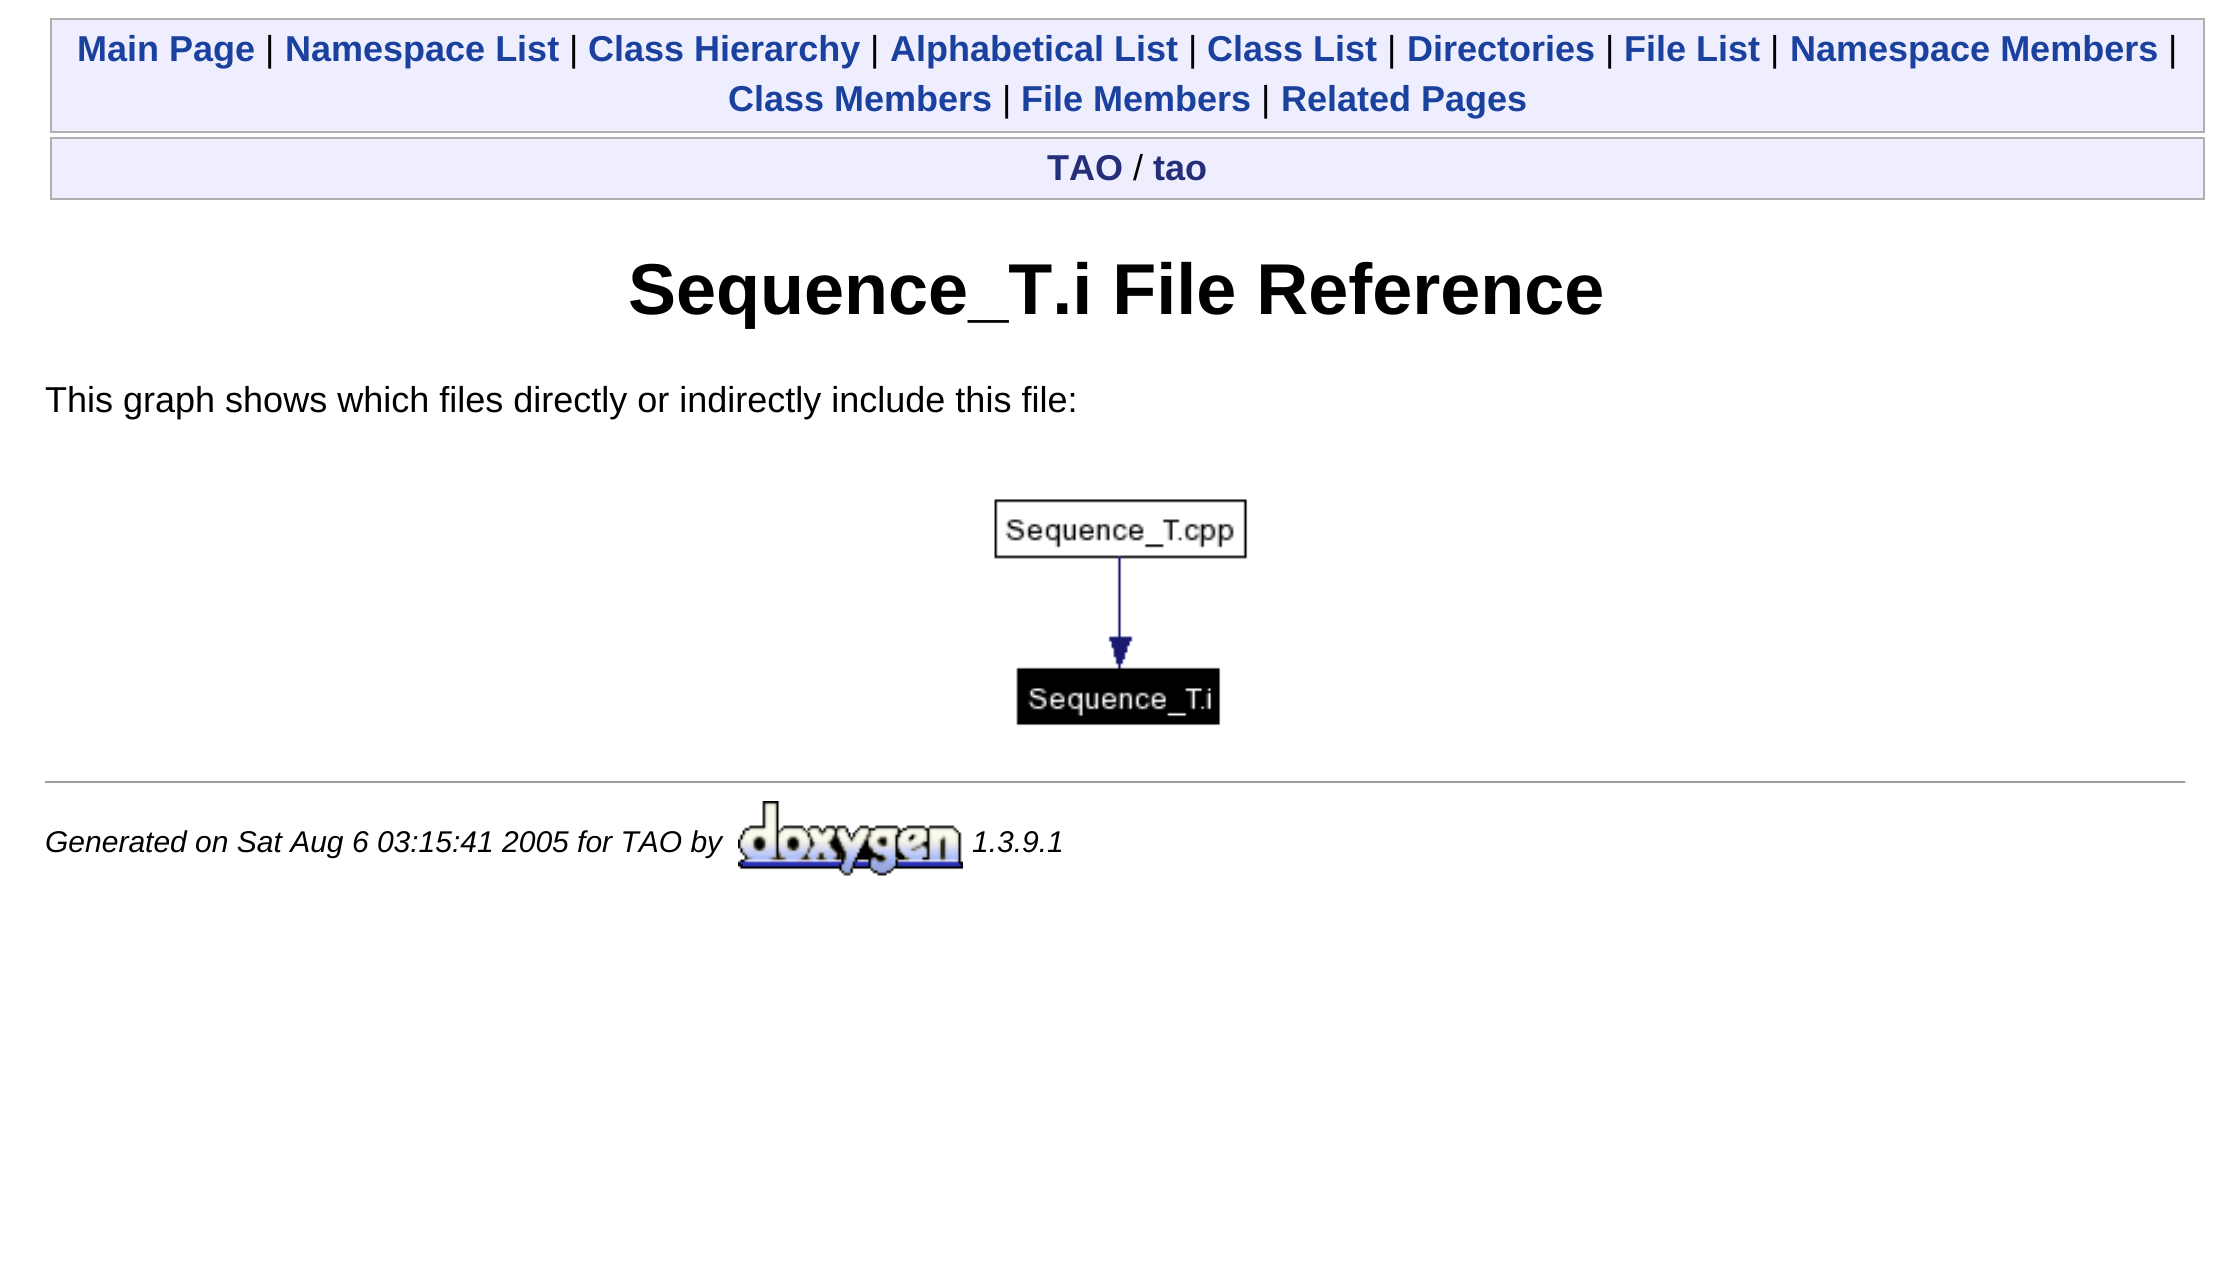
#include <cairo.h>
#include <math.h>
#include <stddef.h>

static cairo_t *c;
static void C(unsigned color){cairo_set_source_rgb(c, (color >> 16) / 255.0, (color >> 8 & 255) / 255.0, (color & 255) / 255.0);}
static void F(const char *family, double size, int italic, int bold){cairo_select_font_face(c, family, italic ? CAIRO_FONT_SLANT_ITALIC : CAIRO_FONT_SLANT_NORMAL,bold ? CAIRO_FONT_WEIGHT_BOLD : CAIRO_FONT_WEIGHT_NORMAL);cairo_set_font_size(c, size);}
static void T(double x, double y, const char *s){cairo_move_to(c, x, y);cairo_show_text(c, s);}
static void R(double x, double y, double w, double h){cairo_rectangle(c, x, y, w, h);cairo_fill(c);}
static void I(const char *path, double x, double y, double w, double h){cairo_surface_t *image = cairo_image_surface_create_from_png(path);cairo_save(c);cairo_set_source_surface(c, image, x, y);cairo_rectangle(c, x, y, w, h);cairo_fill(c);cairo_restore(c);cairo_surface_destroy(image);}
int main(void) {
cairo_surface_t *surface = cairo_image_surface_create(CAIRO_FORMAT_RGB24, 2230, 1273);
c = cairo_create(surface);
cairo_font_options_t *options = cairo_font_options_create();
cairo_font_options_set_hint_metrics(options, CAIRO_HINT_METRICS_OFF);
cairo_font_options_set_hint_style(options, CAIRO_HINT_STYLE_NONE);
cairo_set_font_options(c, options);
cairo_set_miter_limit(c, 4);
C(0xffffff);
cairo_paint(c);
C(0xeeeeff);
cairo_rectangle(c,51,19,2153,113);
cairo_fill_preserve(c);
C(0xb0b0b0);
cairo_stroke(c);
F("Liberation Sans",36,0,1);
C(0x1a419d);
T(77,61,"Main Page");
F("Liberation Sans",36,0,0);
C(0x000000);
T(265,61,"|");
F("Liberation Sans",36,0,1);
C(0x1a419d);
T(285,61,"Namespace List");
F("Liberation Sans",36,0,0);
C(0x000000);
T(569,61,"|");
F("Liberation Sans",36,0,1);
C(0x1a419d);
T(588,61,"Class Hierarchy");
F("Liberation Sans",36,0,0);
C(0x000000);
T(870,61,"|");
F("Liberation Sans",36,0,1);
C(0x1a419d);
T(890,61,"Alphabetical List");
F("Liberation Sans",36,0,0);
C(0x000000);
T(1188,61,"|");
F("Liberation Sans",36,0,1);
C(0x1a419d);
T(1207,61,"Class List");
F("Liberation Sans",36,0,0);
C(0x000000);
T(1387,61,"|");
F("Liberation Sans",36,0,1);
C(0x1a419d);
T(1407,61,"Directories");
F("Liberation Sans",36,0,0);
C(0x000000);
T(1605,61,"|");
F("Liberation Sans",36,0,1);
C(0x1a419d);
T(1624,61,"File List");
F("Liberation Sans",36,0,0);
C(0x000000);
T(1770,61,"|");
F("Liberation Sans",36,0,1);
C(0x1a419d);
T(1790,61,"Namespace Members");
F("Liberation Sans",36,0,0);
C(0x000000);
T(2168,61,"|");
F("Liberation Sans",36,0,1);
C(0x1a419d);
T(728,111,"Class Members");
F("Liberation Sans",36,0,0);
C(0x000000);
T(1002,111,"|");
F("Liberation Sans",36,0,1);
C(0x1a419d);
T(1021,111,"File Members");
F("Liberation Sans",36,0,0);
C(0x000000);
T(1261,111,"|");
F("Liberation Sans",36,0,1);
C(0x1a419d);
T(1281,111,"Related Pages");
C(0xeeeeff);
cairo_rectangle(c,51,138,2153,61);
cairo_fill_preserve(c);
C(0xb0b0b0);
cairo_stroke(c);
C(0x252e78);
T(1047,180,"TAO");
F("Liberation Sans",36,0,0);
C(0x000000);
T(1133,180,"/");
F("Liberation Sans",36,0,1);
C(0x252e78);
T(1153,180,"tao");
F("Liberation Sans",72,0,1);
C(0x000000);
T(628,314,"Sequence_T.i File Reference");
F("Liberation Sans",36,0,0);
T(45,412,"This graph shows which files directly or indirectly include this file:");
I("1.png",994,499,254,227);
C(0x9f9f9f);
R(45,781,2142,2);
C(0xeeeeee);
R(2185,781,2,2);
F("Liberation Sans",30,1,0);
C(0x000000);
T(45,852,"Generated on Sat Aug 6 03:15:41 2005 for TAO by");
I("2.png",738,801,225,75);
T(972,852,"1.3.9.1");
cairo_surface_write_to_png(surface, "o.png");
cairo_font_options_destroy(options);
cairo_destroy(c);
cairo_surface_destroy(surface);
return 0;
}
